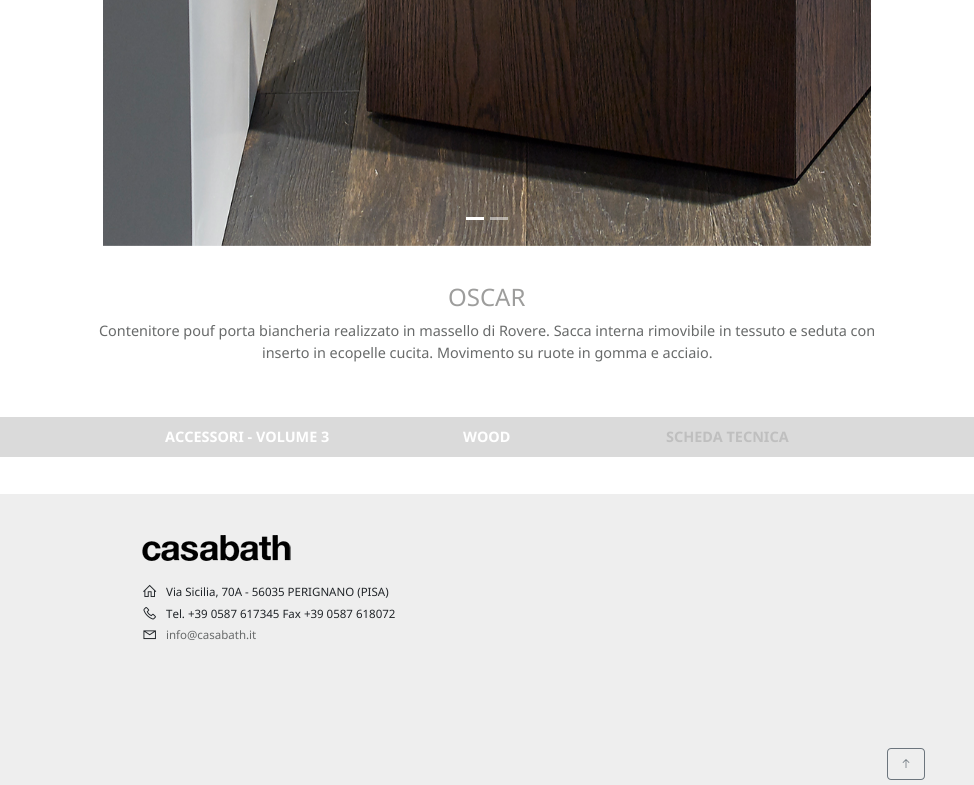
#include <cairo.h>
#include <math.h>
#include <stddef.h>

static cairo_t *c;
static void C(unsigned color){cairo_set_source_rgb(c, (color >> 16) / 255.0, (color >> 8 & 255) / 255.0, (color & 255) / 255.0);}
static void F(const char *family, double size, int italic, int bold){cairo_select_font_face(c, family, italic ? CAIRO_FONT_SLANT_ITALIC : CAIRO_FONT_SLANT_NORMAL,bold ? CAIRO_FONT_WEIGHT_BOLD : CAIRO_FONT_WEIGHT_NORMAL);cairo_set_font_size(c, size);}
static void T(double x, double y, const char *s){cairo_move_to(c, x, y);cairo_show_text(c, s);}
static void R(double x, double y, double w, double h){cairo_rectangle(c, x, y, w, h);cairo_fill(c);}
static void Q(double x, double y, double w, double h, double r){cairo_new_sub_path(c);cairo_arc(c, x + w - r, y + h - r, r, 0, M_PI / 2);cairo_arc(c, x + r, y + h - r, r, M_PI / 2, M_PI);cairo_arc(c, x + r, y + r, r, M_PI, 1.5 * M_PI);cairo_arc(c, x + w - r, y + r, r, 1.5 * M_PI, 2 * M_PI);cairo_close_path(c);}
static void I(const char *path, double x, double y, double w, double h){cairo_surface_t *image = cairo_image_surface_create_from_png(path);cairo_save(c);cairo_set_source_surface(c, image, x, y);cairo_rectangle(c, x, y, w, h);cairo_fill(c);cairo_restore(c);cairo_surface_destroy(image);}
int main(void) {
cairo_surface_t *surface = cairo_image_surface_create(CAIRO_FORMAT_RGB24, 974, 785);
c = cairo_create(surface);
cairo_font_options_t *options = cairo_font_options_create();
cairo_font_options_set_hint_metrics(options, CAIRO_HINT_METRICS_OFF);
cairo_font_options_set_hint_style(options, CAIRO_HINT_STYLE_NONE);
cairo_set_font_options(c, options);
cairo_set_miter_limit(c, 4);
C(0xffffff);
cairo_paint(c);
I("1.png",103,0,768,246);
C(0xffffff);
R(466,217,18,3);
cairo_set_source_rgba(c,1,1,1,0.5);
R(490,217,18,3);
F("Noto Sans",24,0,0);
C(0x9d9d9c);
T(448,306,"OSCAR");
F("Noto Sans",14.4,0,0);
C(0x686a6a);
T(99,336,"Contenitore pouf porta biancheria realizzato in massello di Rovere. Sacca interna rimovibile in tessuto e seduta con");
T(262,358,"inserto in ecopelle cucita. Movimento su ruote in gomma e acciaio.");
C(0xdadada);
R(0,417,974,40);
F("Noto Sans",14.4,0,1);
C(0xffffff);
T(165,442,"ACCESSORI - VOLUME 3");
T(463,442,"WOOD");
C(0xbfbfbf);
T(666,442,"SCHEDA TECNICA");
C(0xeeeeee);
R(0,494,974,291);
I("2.png",142,535,149,26);
I("3.png",143,584,14,13);
F("Noto Sans",11.5,0,0);
C(0x212529);
T(166,596,"Via Sicilia, 70A - 56035 PERIGNANO (PISA)");
I("4.png",143,607,13,13);
T(166,618,"Tel. +39 0587 617345 Fax +39 0587 618072");
I("5.png",143,630,13,10);
C(0x686a6a);
T(166,639,"info@casabath.it");
Q(887.5,748.5,37,31,3.5);
C(0x6c757d);
cairo_set_line_width(c,1);
cairo_stroke(c);
I("6.png",902,759,8,9);
cairo_surface_write_to_png(surface, "o.png");
cairo_font_options_destroy(options);
cairo_destroy(c);
cairo_surface_destroy(surface);
return 0;
}
